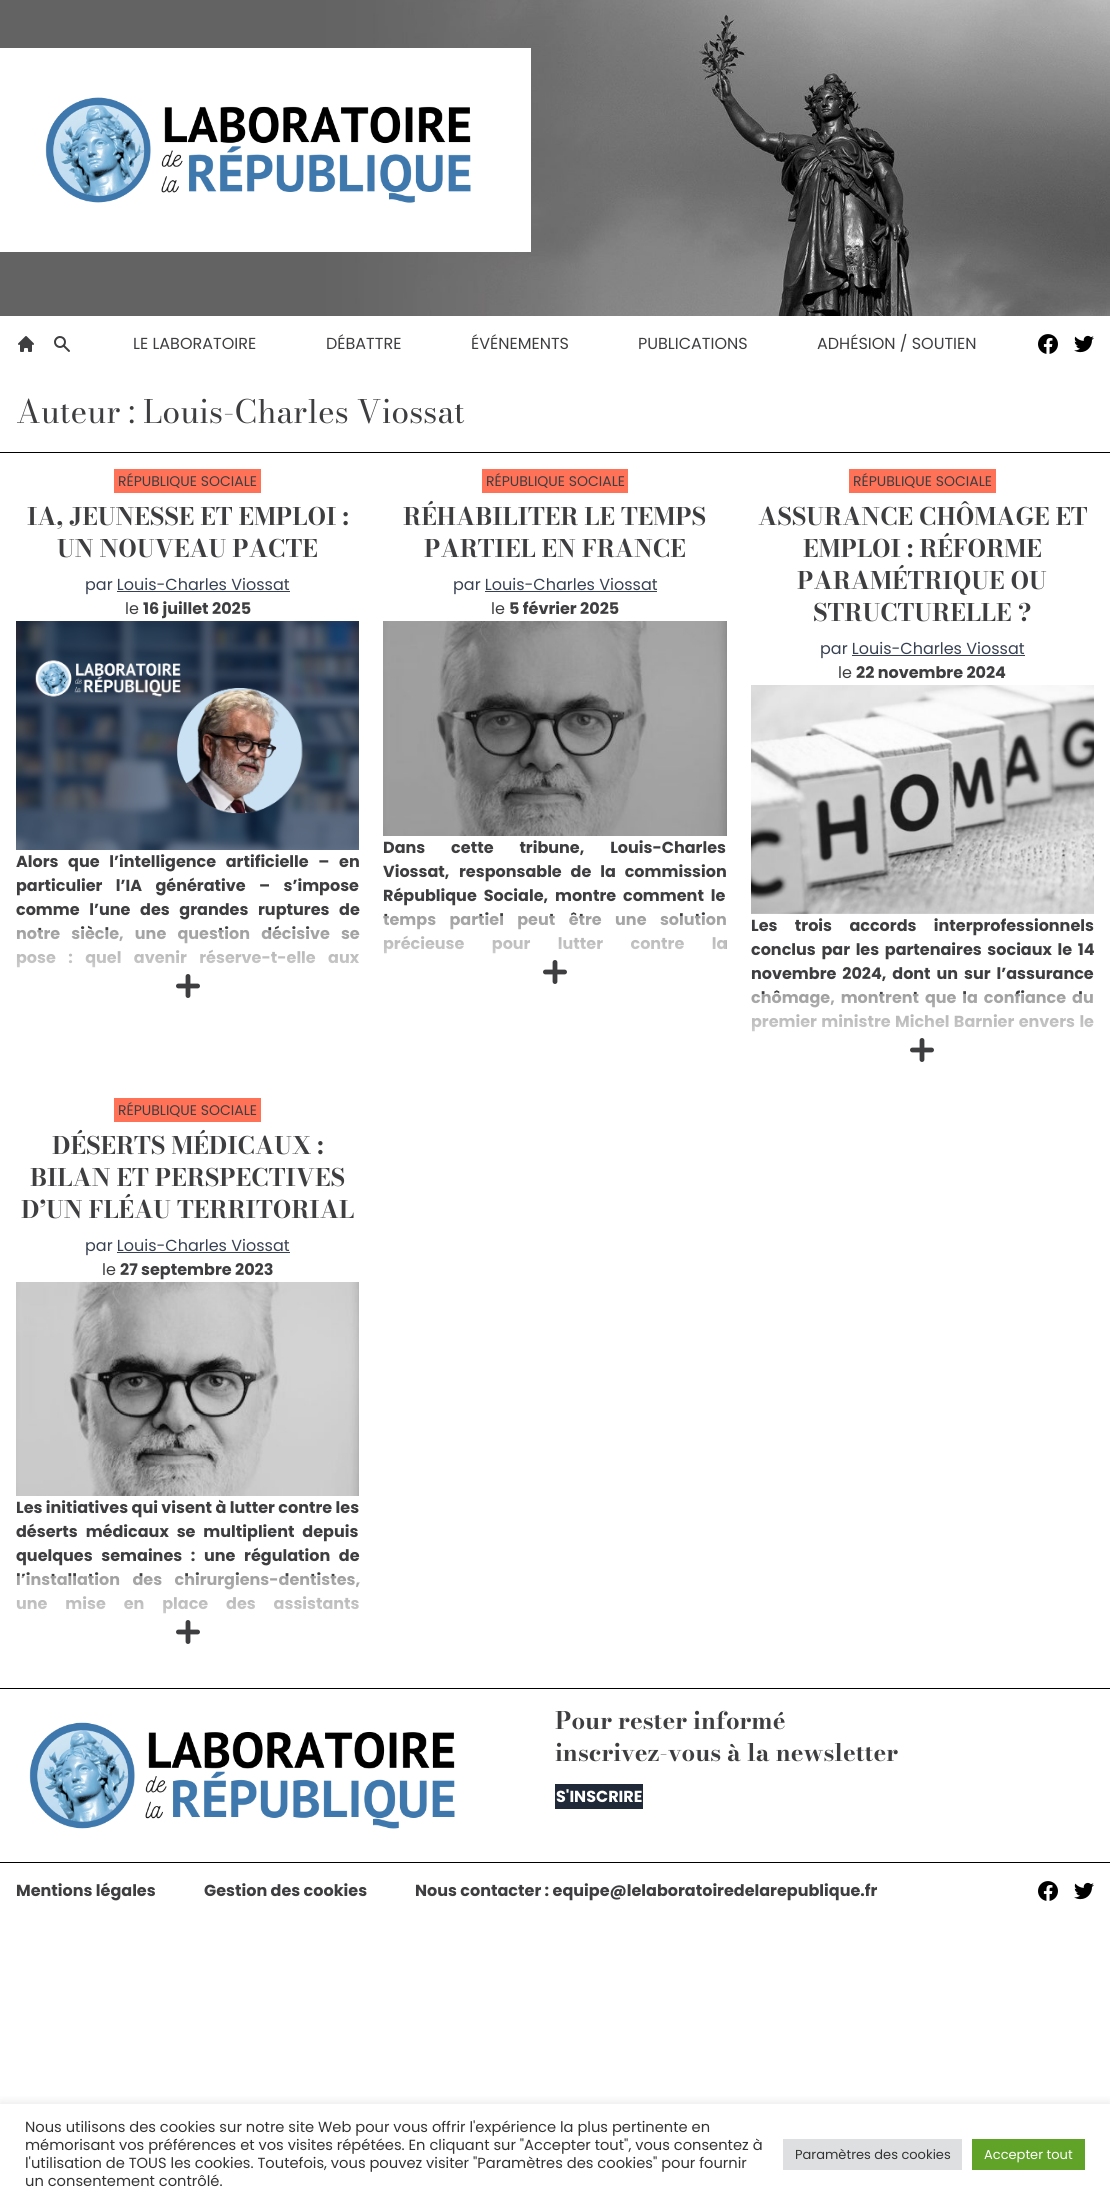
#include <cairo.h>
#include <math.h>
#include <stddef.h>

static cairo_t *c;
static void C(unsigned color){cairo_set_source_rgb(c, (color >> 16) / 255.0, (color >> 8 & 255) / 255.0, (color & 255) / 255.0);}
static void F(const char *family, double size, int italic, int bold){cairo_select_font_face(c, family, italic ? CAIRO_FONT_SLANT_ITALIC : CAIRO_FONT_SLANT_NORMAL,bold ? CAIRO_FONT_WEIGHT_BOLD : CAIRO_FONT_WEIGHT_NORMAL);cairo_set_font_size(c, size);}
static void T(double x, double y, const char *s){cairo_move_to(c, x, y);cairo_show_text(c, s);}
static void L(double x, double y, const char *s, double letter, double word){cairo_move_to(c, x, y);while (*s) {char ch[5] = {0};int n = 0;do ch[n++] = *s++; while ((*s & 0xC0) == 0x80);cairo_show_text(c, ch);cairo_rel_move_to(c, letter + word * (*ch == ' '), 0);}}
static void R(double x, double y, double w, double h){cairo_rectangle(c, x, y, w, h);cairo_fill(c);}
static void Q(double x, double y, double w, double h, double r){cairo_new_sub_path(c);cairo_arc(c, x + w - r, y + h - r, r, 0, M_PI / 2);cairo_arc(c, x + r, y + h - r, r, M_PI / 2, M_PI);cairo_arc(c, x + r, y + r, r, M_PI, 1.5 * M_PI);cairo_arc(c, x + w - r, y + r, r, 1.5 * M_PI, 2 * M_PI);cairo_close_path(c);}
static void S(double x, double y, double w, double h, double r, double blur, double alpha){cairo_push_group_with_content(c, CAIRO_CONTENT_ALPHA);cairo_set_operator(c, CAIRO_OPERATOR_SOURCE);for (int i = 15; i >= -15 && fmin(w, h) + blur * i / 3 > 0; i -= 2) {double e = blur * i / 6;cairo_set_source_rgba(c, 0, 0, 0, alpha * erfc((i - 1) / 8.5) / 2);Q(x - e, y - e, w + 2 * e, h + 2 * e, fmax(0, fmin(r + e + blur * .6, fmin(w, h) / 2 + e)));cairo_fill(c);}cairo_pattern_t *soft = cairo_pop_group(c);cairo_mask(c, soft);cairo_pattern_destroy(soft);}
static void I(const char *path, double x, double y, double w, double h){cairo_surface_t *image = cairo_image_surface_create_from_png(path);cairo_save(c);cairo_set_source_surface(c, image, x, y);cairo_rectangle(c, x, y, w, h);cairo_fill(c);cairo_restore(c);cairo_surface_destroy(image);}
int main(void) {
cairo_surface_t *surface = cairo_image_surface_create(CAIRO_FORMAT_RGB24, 1110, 2204);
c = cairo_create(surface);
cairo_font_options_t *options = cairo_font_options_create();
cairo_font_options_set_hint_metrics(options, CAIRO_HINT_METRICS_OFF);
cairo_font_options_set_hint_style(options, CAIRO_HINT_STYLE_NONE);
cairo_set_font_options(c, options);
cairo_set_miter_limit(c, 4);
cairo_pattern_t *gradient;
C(0xffffff);
cairo_paint(c);
I("1.png",0,0,1110,316);
C(0xffffff);
R(0,48,531,204);
I("2.png",45,97,426,106);
I("3.png",18,336,16,16);
I("4.png",54,336,16,16);
F("Poppins",16,0,0);
C(0x3e3d40);
T(133,349,"LE LABORATOIRE");
T(326,349,"DÉBATTRE");
T(471,349,"ÉVÉNEMENTS");
T(638,349,"PUBLICATIONS");
T(817,349,"ADHÉSION / SOUTIEN");
I("5.png",1038,334,20,20);
I("6.png",1074,335,20,18);
F("Bodoni Moda",32,0,0);
T(16,423,"Auteur : Louis-Charles Viossat");
C(0x000000);
R(0,452,1110,1);
C(0xff7258);
R(114,469,147,24);
F("Poppins",14,0,0);
C(0x3e3d40);
T(118,486,"RÉPUBLIQUE SOCIALE");
F("Bodoni Moda",24,0,1);
T(27,525,"IA, JEUNESSE ET EMPLOI :");
T(57,557,"UN NOUVEAU PACTE");
F("Poppins",16,0,0);
C(0x374151);
T(85,590,"par Louis-Charles Viossat");
R(117,591,173,1);
C(0x3e3d40);
T(125,614,"le");
F("Poppins",16,0,1);
T(143,614,"16 juillet 2025");
I("7.png",16,621,343,229);
L(16,867,"Alors que l’intelligence artificielle – en",0,6.25);
L(16,891,"particulier l’IA générative – s’impose",0,10);
L(16,915,"comme l’une des grandes ruptures de",0,6.25);
L(16,939,"notre siècle, une question décisive se",0,7.75);
L(16,963,"pose : quel avenir réserve-t-elle aux",0,9);
gradient = cairo_pattern_create_linear(188,930,188,1010);
cairo_pattern_add_color_stop_rgba(gradient,0,1,1,1,.5);
cairo_pattern_add_color_stop_rgba(gradient,1,1,1,1,1);
cairo_set_source(c,gradient);
cairo_pattern_destroy(gradient);
R(17,930,342,38);
I("8.png",176,974,24,24);
C(0xff7258);
R(482,469,146,24);
F("Poppins",14,0,0);
C(0x3e3d40);
T(486,486,"RÉPUBLIQUE SOCIALE");
F("Bodoni Moda",24,0,1);
T(403,525,"RÉHABILITER LE TEMPS");
T(424,557,"PARTIEL EN FRANCE");
F("Poppins",16,0,0);
C(0x374151);
T(453,590,"par Louis-Charles Viossat");
R(485,591,172,1);
C(0x3e3d40);
T(491,614,"le");
F("Poppins",16,0,1);
T(509,614,"5 février 2025");
I("9.png",383,621,344,215);
L(383,853,"Dans cette tribune, Louis-Charles",0,22.5);
T(383,877,"Viossat,");
L(459,877,"responsable de la commission",0,5.5);
L(383,901,"République Sociale, montre comment le",0,3.5);
L(383,925,"temps partiel peut être une solution",0,10);
L(383,949,"précieuse pour lutter contre la",0,24);
gradient = cairo_pattern_create_linear(555,916,555,996);
cairo_pattern_add_color_stop_rgba(gradient,0,1,1,1,.5);
cairo_pattern_add_color_stop_rgba(gradient,1,1,1,1,1);
cairo_set_source(c,gradient);
cairo_pattern_destroy(gradient);
R(383,916,343,38);
I("10.png",543,960,24,24);
C(0xff7258);
R(849,469,147,24);
F("Poppins",14,0,0);
C(0x3e3d40);
T(853,486,"RÉPUBLIQUE SOCIALE");
F("Bodoni Moda",24,0,1);
T(758,525,"ASSURANCE CHÔMAGE ET");
T(803,557,"EMPLOI : RÉFORME");
T(797,589,"PARAMÉTRIQUE OU");
T(813,621,"STRUCTURELLE ?");
F("Poppins",16,0,0);
C(0x374151);
T(820,654,"par Louis-Charles Viossat");
R(852,655,173,1);
C(0x3e3d40);
T(838,678,"le");
F("Poppins",16,0,1);
T(856,678,"22 novembre 2024");
I("11.png",751,685,343,229);
L(751,931,"Les trois accords interprofessionnels",0,14);
L(751,955,"conclus par les partenaires sociaux le 14",0,2.25);
L(751,979,"novembre 2024, dont un sur l’assurance",0,2.5);
L(751,1003,"chômage, montrent que la confiance du",0,2.5);
L(751,1027,"premier ministre Michel Barnier envers le",0,1);
gradient = cairo_pattern_create_linear(923,994,923,1074);
cairo_pattern_add_color_stop_rgba(gradient,0,1,1,1,.5);
cairo_pattern_add_color_stop_rgba(gradient,1,1,1,1,1);
cairo_set_source(c,gradient);
cairo_pattern_destroy(gradient);
R(751,994,343,38);
I("12.png",910,1038,24,24);
C(0xff7258);
R(114,1098,147,24);
F("Poppins",14,0,0);
C(0x3e3d40);
T(118,1115,"RÉPUBLIQUE SOCIALE");
F("Bodoni Moda",24,0,1);
T(52,1154,"DÉSERTS MÉDICAUX :");
T(30,1186,"BILAN ET PERSPECTIVES");
T(21,1218,"D’UN FLÉAU TERRITORIAL");
F("Poppins",16,0,0);
C(0x374151);
T(85,1251,"par Louis-Charles Viossat");
R(117,1252,173,1);
C(0x3e3d40);
T(102,1275,"le");
F("Poppins",16,0,1);
T(120,1275,"27 septembre 2023");
I("13.png",16,1282,343,214);
T(16,1513,"Les initiatives qui visent à lutter contre les");
L(16,1537,"déserts médicaux se multiplient depuis",0,4.5);
L(16,1561,"quelques semaines : une régulation de",0,5.25);
L(16,1585,"l’installation des chirurgiens-dentistes,",0,9);
L(16,1609,"une mise en place des assistants",0,14.5);
gradient = cairo_pattern_create_linear(188,1576,188,1656);
cairo_pattern_add_color_stop_rgba(gradient,0,1,1,1,.5);
cairo_pattern_add_color_stop_rgba(gradient,1,1,1,1,1);
cairo_set_source(c,gradient);
cairo_pattern_destroy(gradient);
R(16,1576,343,38);
I("14.png",176,1620,24,24);
C(0x000000);
R(0,1688,1110,1);
R(0,1862,1110,1);
I("15.png",29,1722,426,107);
F("Bodoni Moda",24,0,1);
C(0x3e3d40);
T(555,1729,"Pour rester informé");
T(555,1761,"inscrivez-vous à la newsletter");
C(0x1f2937);
R(555,1784,88,25);
F("Poppins",16,0,1);
C(0xffffff);
T(556,1802,"S'INSCRIRE");
C(0x3e3d40);
T(16,1896,"Mentions légales");
T(204,1896,"Gestion des cookies");
T(415,1896,"Nous contacter : equipe@lelaboratoiredelarepublique.fr");
I("5.png",1038,1881,20,20);
I("6.png",1074,1882,20,18);
cairo_save(c);
cairo_rectangle(c,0,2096,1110,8);
cairo_clip(c);
C(0xacabab);
S(0,2103,1110,100,0,5,.3);
cairo_restore(c);
F("Poppins",14.67,0,0);
C(0x333333);
T(25,2132,"Nous utilisons des cookies sur notre site Web pour vous offrir l'expérience la plus pertinente en");
T(25,2150,"mémorisant vos préférences et vos visites répétées. En cliquant sur \"Accepter tout\", vous consentez à");
T(25,2168,"l'utilisation de TOUS les cookies. Toutefois, vous pouvez visiter \"Paramètres des cookies\" pour fournir");
T(25,2186,"un consentement contrôlé.");
C(0xdedfe0);
R(783,2139,179,31);
F("Poppins",13,0,0);
C(0x333333);
T(795,2159,"Paramètres des cookies");
C(0x61a229);
R(972,2139,113,31);
C(0xffffff);
T(984,2159,"Accepter tout");
cairo_surface_write_to_png(surface, "o.png");
cairo_font_options_destroy(options);
cairo_destroy(c);
cairo_surface_destroy(surface);
return 0;
}
